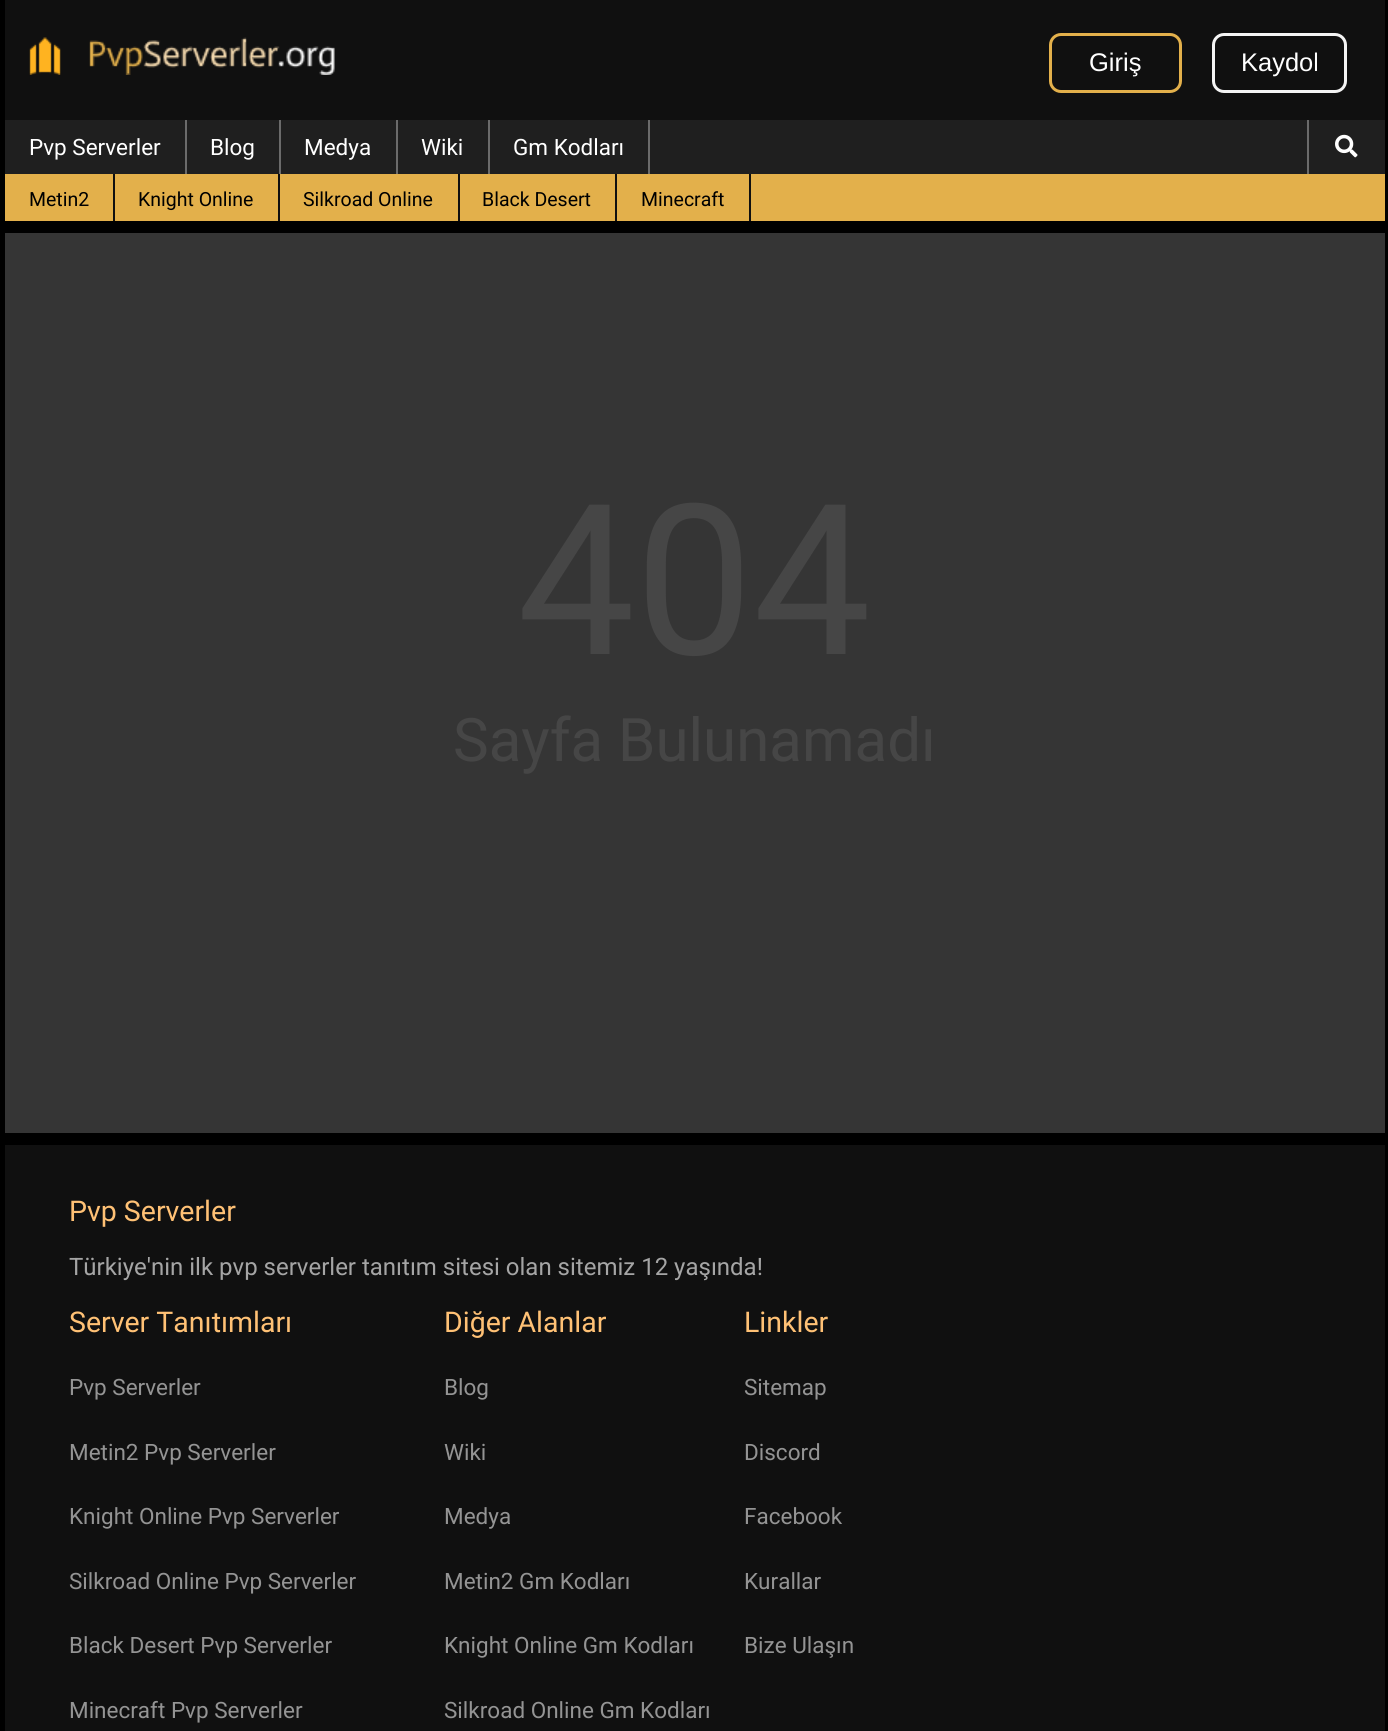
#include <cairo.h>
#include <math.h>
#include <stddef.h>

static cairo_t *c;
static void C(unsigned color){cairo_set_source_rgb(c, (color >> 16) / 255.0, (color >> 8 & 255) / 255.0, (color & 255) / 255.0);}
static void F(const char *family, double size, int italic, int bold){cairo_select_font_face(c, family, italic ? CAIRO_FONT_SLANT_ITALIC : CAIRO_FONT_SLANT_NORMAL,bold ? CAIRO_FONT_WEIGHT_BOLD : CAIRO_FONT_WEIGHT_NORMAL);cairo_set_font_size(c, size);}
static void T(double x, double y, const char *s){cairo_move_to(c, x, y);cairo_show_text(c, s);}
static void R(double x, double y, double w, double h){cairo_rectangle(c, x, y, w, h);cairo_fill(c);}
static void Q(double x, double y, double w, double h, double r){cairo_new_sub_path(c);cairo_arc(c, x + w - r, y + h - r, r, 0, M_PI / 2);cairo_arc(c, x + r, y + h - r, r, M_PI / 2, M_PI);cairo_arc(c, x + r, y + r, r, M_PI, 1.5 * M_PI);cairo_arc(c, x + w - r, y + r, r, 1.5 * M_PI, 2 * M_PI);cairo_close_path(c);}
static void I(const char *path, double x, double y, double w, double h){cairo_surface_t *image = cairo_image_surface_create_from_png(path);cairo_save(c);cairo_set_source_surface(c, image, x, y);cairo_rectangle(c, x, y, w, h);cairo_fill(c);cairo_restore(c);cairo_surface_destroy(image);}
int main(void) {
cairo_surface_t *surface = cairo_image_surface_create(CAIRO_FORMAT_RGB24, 1388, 1731);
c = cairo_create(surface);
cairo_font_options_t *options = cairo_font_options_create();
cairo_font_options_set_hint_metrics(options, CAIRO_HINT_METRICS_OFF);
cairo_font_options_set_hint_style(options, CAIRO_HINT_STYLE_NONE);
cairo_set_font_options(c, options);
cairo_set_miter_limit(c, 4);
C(0x000000);
cairo_paint(c);
C(0x101010);
R(5,0,1380,120);
I("1.png",29,37,306,38);
Q(1050.5,34.5,130,57,10.5);
C(0xe3b04b);
cairo_set_line_width(c,3);
cairo_stroke(c);
F("Liberation Sans",25.5,0,0);
C(0xffffff);
T(1089,71,"Giriş");
Q(1213.5,34.5,132,57,10.5);
C(0xf4f4f4);
cairo_stroke(c);
C(0xffffff);
T(1241,71,"Kaydol");
C(0x1f1f1f);
R(5,120,1380,54);
C(0x6b6b6b);
R(185,120,2,54);
F("Roboto",22.5,0,0);
C(0xffffff);
T(29,155,"Pvp Serverler");
C(0x6b6b6b);
R(279,120,2,54);
C(0xffffff);
T(210,155,"Blog");
C(0x6b6b6b);
R(396,120,2,54);
C(0xffffff);
T(304,155,"Medya");
C(0x6b6b6b);
R(488,120,2,54);
C(0xffffff);
T(421,155,"Wiki");
C(0x6b6b6b);
R(648,120,2,54);
C(0xffffff);
T(513,155,"Gm Kodları");
C(0x6b6b6b);
R(1307,120,2,54);
I("2.png",1335,134,23,24);
C(0xe3b04b);
R(5,174,1380,47);
F("Roboto",19.5,0,0);
C(0x000000);
T(29,206,"Metin2");
C(0x101010);
R(113,174,2,47);
C(0x000000);
T(138,206,"Knight Online");
C(0x101010);
R(278,174,2,47);
C(0x000000);
T(303,206,"Silkroad Online");
C(0x101010);
R(458,174,2,47);
C(0x000000);
T(482,206,"Black Desert");
C(0x101010);
R(615,174,2,47);
C(0x000000);
T(641,206,"Minecraft");
C(0x101010);
R(749,174,2,47);
C(0x353535);
R(5,233,1380,900);
F("Roboto",210,0,0);
C(0x464646);
T(517,654,"404");
F("Roboto",60,0,0);
T(453,761,"Sayfa Bulunamadı");
C(0x101010);
R(5,1145,1380,586);
F("Roboto",28.5,0,0);
C(0xffc175);
T(69,1221,"Pvp Serverler");
F("Roboto",24,0,0);
C(0xa5a5a5);
T(69,1275,"Türkiye'nin ilk pvp serverler tanıtım sitesi olan sitemiz 12 yaşında!");
F("Roboto",28.5,0,0);
C(0xffc175);
T(69,1332,"Server Tanıtımları");
F("Roboto",22.5,0,0);
C(0x949494);
T(69,1395,"Pvp Serverler");
T(69,1460,"Metin2 Pvp Serverler");
T(69,1524,"Knight Online Pvp Serverler");
T(69,1589,"Silkroad Online Pvp Serverler");
T(69,1653,"Black Desert Pvp Serverler");
T(69,1718,"Minecraft Pvp Serverler");
F("Roboto",28.5,0,0);
C(0xffc175);
T(444,1332,"Diğer Alanlar");
F("Roboto",22.5,0,0);
C(0x949494);
T(444,1395,"Blog");
T(444,1460,"Wiki");
T(444,1524,"Medya");
T(444,1589,"Metin2 Gm Kodları");
T(444,1653,"Knight Online Gm Kodları");
T(444,1718,"Silkroad Online Gm Kodları");
F("Roboto",28.5,0,0);
C(0xffc175);
T(744,1332,"Linkler");
F("Roboto",22.5,0,0);
C(0x949494);
T(744,1395,"Sitemap");
T(744,1460,"Discord");
T(744,1524,"Facebook");
T(744,1589,"Kurallar");
T(744,1653,"Bize Ulaşın");
cairo_surface_write_to_png(surface, "o.png");
cairo_font_options_destroy(options);
cairo_destroy(c);
cairo_surface_destroy(surface);
return 0;
}
